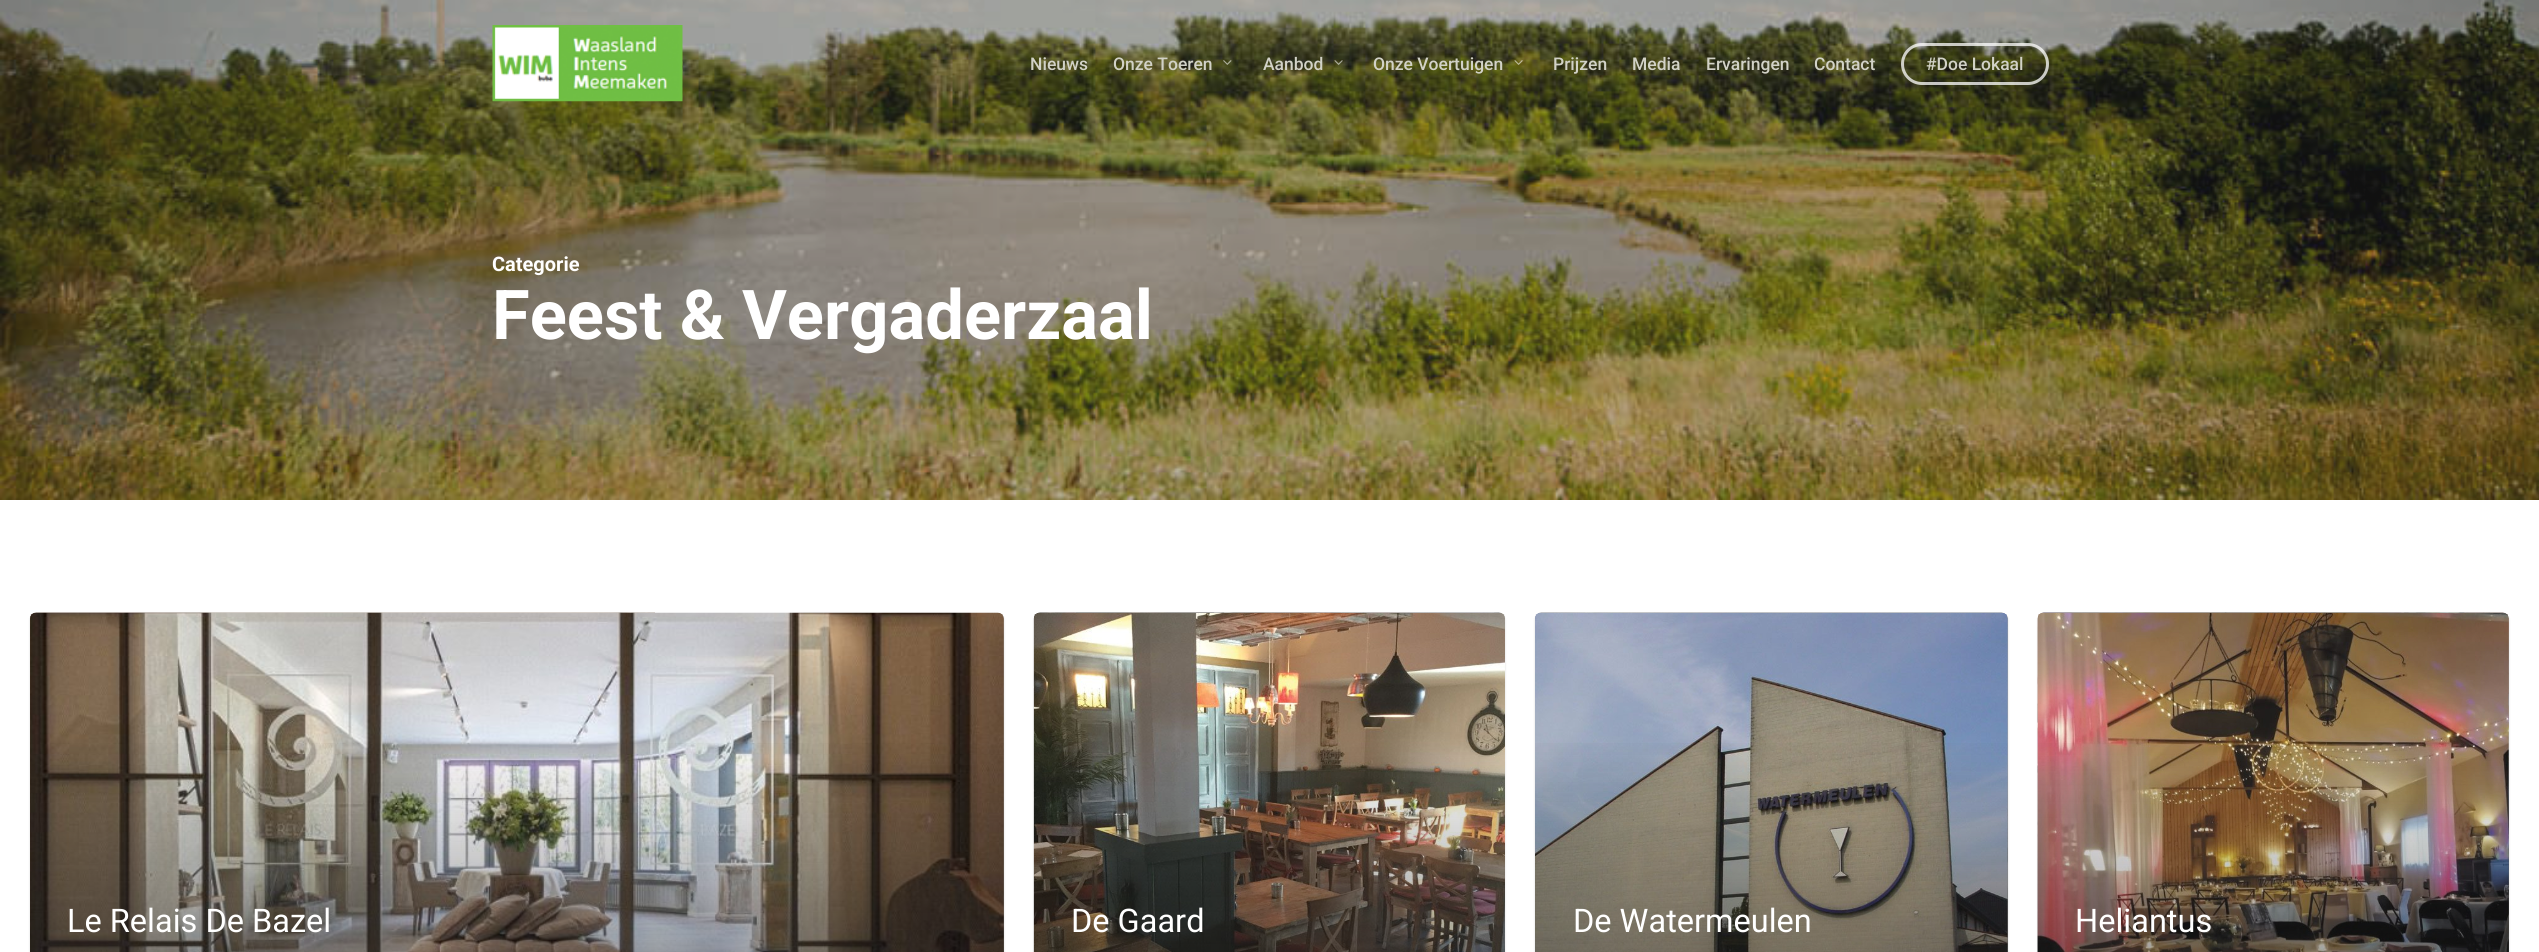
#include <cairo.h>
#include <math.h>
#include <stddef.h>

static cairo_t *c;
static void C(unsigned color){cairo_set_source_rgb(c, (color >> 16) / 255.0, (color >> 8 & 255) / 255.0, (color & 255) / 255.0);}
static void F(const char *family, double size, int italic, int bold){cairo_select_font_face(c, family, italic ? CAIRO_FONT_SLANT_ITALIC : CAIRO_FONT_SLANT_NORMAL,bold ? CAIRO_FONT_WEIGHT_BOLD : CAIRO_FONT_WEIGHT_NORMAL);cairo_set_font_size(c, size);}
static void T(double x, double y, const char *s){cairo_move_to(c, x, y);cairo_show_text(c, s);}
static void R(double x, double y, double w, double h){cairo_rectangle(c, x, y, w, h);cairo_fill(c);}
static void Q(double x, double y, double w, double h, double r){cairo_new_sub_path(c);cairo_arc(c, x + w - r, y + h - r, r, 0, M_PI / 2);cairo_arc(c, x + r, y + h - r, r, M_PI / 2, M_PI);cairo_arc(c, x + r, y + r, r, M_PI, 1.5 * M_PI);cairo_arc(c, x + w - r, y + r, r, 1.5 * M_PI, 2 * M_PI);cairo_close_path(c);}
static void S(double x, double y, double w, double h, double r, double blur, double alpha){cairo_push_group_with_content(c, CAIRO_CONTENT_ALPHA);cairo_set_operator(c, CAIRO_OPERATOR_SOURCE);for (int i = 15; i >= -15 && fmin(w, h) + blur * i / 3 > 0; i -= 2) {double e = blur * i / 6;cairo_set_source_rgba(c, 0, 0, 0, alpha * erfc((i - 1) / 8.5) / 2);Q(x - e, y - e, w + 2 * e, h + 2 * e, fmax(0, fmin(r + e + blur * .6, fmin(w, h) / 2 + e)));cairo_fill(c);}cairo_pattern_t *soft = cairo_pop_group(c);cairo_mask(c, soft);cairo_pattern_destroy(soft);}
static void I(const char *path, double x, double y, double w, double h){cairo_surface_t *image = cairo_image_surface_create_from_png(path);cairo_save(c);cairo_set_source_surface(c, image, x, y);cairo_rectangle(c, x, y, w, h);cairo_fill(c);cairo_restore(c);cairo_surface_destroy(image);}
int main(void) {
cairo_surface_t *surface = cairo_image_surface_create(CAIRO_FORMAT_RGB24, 2539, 952);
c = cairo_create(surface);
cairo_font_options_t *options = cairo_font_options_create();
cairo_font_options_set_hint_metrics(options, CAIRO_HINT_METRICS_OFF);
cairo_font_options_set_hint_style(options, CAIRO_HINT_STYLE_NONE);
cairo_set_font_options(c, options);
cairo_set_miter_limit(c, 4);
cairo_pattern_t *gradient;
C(0xffffff);
cairo_paint(c);
I("5.png",0,0,2539,500);
I("1.png",492,25,191,77);
F("Roboto Medium",17.5,0,0);
C(0xd2d2c7);
T(1030,70,"Nieuws");
T(1113,70,"Onze Toeren");
I("2.png",1223,60,9,5);
T(1263,70,"Aanbod");
I("3.png",1334,60,9,5);
T(1373,70,"Onze Voertuigen");
I("4.png",1514,60,9,5);
T(1553,70,"Prijzen");
T(1632,70,"Media");
T(1706,70,"Ervaringen");
T(1814,70,"Contact");
Q(1902.5,44.5,145,39,19.5);
cairo_set_source_rgba(c,1,1,1,0.75);
cairo_set_line_width(c,3);
cairo_stroke(c);
C(0xd2d2c7);
T(1926,70,"#Doe Lokaal");
F("Roboto",20,0,1);
C(0xffffff);
T(492,271,"Categorie");
F("Roboto",68.75,0,1);
T(492,339,"Feest & Vergaderzaal");
C(0x000000);
S(30,614,974,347,6,1,.15);
cairo_set_source_rgba(c,0,0,0,0.3);
Q(30,613,974,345,6);
cairo_fill(c);
I("6.png",30,612,625,7);
I("7.png",30,612,974,340);
gradient = cairo_pattern_create_linear(519,731,519,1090);
cairo_pattern_add_color_stop_rgba(gradient,0,0.137,0.137,0.137,0);
cairo_pattern_add_color_stop_rgba(gradient,1,0.137,0.137,0.137,.65);
cairo_set_source(c,gradient);
cairo_pattern_destroy(gradient);
R(30,743,974,209);
F("Roboto",32.5,0,0);
C(0xffffff);
T(67,932,"Le Relais De Bazel");
C(0x000000);
S(1034,614,471,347,6,1,.15);
I("8.png",1033,612,472,340);
I("9.png",1033,612,472,340);
C(0xffffff);
T(1071,932,"De Gaard");
C(0x000000);
S(1535,614,473,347,6,1,.15);
cairo_set_source_rgba(c,0,0,0,0.3);
Q(1535,613,473,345,6);
cairo_fill(c);
I("10.png",1535,612,473,340);
I("11.png",1535,612,473,340);
gradient = cairo_pattern_create_linear(1773,731,1773,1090);
cairo_pattern_add_color_stop_rgba(gradient,0,0.137,0.137,0.137,0);
cairo_pattern_add_color_stop_rgba(gradient,1,0.137,0.137,0.137,.65);
cairo_set_source(c,gradient);
cairo_pattern_destroy(gradient);
R(1535,743,473,209);
C(0xffffff);
T(1573,932,"De Watermeulen");
C(0x000000);
S(2038,614,471,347,6,1,.15);
I("12.png",2037,612,472,340);
I("13.png",2037,612,472,340);
gradient = cairo_pattern_create_linear(2274,731,2274,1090);
cairo_pattern_add_color_stop_rgba(gradient,0,0.137,0.137,0.137,0);
cairo_pattern_add_color_stop_rgba(gradient,1,0.137,0.137,0.137,.65);
cairo_set_source(c,gradient);
cairo_pattern_destroy(gradient);
R(2038,743,471,209);
C(0xffffff);
T(2075,932,"Heliantus");
cairo_surface_write_to_png(surface, "o.png");
cairo_font_options_destroy(options);
cairo_destroy(c);
cairo_surface_destroy(surface);
return 0;
}
